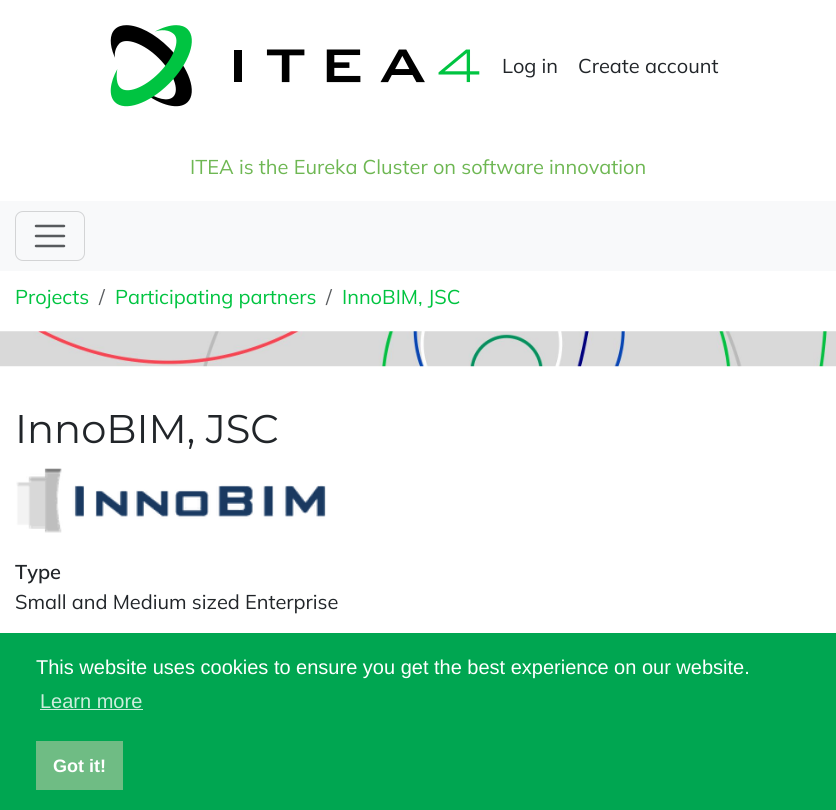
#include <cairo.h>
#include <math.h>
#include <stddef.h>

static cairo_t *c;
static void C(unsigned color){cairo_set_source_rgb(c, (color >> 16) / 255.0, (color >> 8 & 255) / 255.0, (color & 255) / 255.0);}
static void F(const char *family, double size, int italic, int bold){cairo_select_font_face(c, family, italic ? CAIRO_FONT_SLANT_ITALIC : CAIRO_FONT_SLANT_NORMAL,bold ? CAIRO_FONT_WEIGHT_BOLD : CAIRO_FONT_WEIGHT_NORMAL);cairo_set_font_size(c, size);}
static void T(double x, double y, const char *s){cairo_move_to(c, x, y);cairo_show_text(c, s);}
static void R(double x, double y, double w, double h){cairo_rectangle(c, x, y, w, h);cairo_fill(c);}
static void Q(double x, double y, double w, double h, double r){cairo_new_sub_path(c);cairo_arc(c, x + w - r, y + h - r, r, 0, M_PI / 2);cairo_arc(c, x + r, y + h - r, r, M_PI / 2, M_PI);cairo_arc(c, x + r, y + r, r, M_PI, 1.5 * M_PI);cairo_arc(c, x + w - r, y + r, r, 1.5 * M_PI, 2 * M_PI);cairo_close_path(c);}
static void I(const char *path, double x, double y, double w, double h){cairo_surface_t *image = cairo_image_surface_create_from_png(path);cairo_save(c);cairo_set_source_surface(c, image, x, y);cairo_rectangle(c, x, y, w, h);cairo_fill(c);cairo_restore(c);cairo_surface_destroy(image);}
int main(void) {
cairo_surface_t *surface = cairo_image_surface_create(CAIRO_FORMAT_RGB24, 836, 810);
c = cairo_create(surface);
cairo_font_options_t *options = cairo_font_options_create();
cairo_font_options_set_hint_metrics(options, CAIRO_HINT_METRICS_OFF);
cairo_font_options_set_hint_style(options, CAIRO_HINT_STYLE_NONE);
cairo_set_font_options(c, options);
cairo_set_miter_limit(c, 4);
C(0xffffff);
cairo_paint(c);
I("1.png",110,25,370,82);
F("Mulish",20,0,0);
C(0x212529);
T(502,73,"Log in");
T(578,73,"Create account");
C(0x6eb753);
T(190,174,"ITEA is the Eureka Cluster on software innovation");
C(0xf8f9fa);
R(0,201,836,70);
Q(15.5,211.5,69,49,7.5);
C(0xd3d4d5);
cairo_set_line_width(c,1);
cairo_stroke(c);
cairo_new_path(c);
cairo_move_to(c,36,226);
cairo_line_to(c,64,226);
cairo_move_to(c,36,236);
cairo_line_to(c,64,236);
cairo_move_to(c,36,246);
cairo_line_to(c,64,246);
C(0x575a5d);
cairo_set_line_width(c,2.5);
cairo_set_line_cap(c,CAIRO_LINE_CAP_ROUND);
cairo_stroke(c);
C(0x00c440);
T(15,304,"Projects");
C(0x595c5f);
T(99,304,"/");
C(0x00c440);
T(115,304,"Participating partners");
C(0x595c5f);
T(326,304,"/");
C(0x00c440);
T(342,304,"InnoBIM, JSC");
I("2.png",0,331,836,36);
F("Montserrat",40,0,0);
C(0x212529);
T(15,443,"InnoBIM, JSC");
I("3.png",16,468,310,65);
F("Mulish SemiBold",20,0,0);
T(15,579,"Type");
F("Mulish",20,0,0);
T(15,609,"Small and Medium sized Enterprise");
C(0x00a651);
R(0,633,836,177);
F("Liberation Sans",20,0,0);
C(0xffffff);
T(36,674,"This website uses cookies to ensure you get the best experience on our website.");
C(0xcceddc);
T(40,708,"Learn more");
R(40,709,103,1);
C(0x6fbc84);
R(36,741,87,49);
F("Liberation Sans",18,0,1);
C(0xffffff);
T(53,772,"Got it!");
cairo_surface_write_to_png(surface, "o.png");
cairo_font_options_destroy(options);
cairo_destroy(c);
cairo_surface_destroy(surface);
return 0;
}
